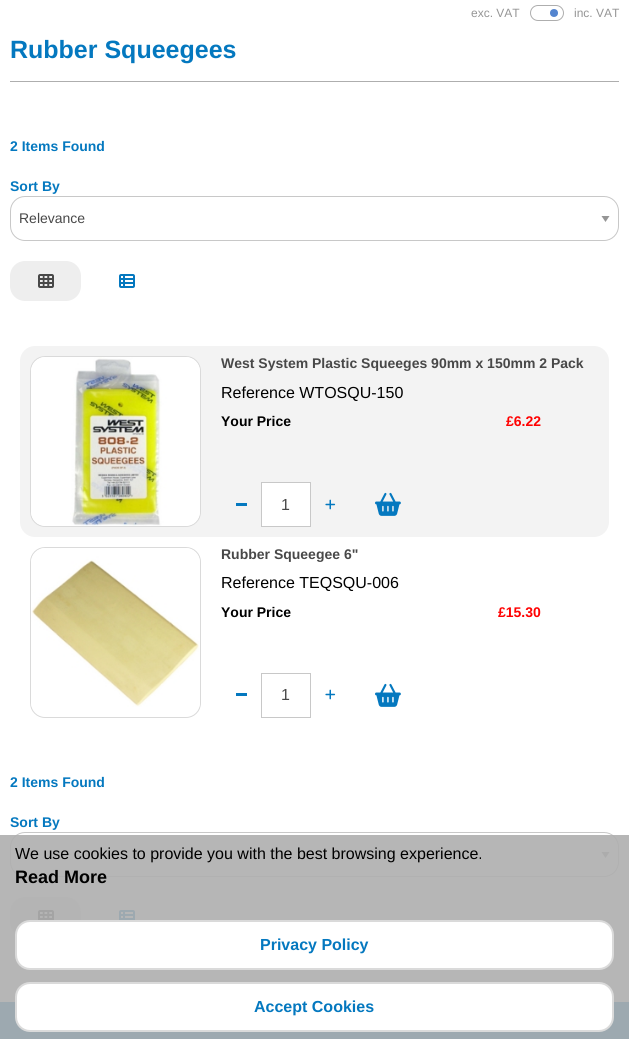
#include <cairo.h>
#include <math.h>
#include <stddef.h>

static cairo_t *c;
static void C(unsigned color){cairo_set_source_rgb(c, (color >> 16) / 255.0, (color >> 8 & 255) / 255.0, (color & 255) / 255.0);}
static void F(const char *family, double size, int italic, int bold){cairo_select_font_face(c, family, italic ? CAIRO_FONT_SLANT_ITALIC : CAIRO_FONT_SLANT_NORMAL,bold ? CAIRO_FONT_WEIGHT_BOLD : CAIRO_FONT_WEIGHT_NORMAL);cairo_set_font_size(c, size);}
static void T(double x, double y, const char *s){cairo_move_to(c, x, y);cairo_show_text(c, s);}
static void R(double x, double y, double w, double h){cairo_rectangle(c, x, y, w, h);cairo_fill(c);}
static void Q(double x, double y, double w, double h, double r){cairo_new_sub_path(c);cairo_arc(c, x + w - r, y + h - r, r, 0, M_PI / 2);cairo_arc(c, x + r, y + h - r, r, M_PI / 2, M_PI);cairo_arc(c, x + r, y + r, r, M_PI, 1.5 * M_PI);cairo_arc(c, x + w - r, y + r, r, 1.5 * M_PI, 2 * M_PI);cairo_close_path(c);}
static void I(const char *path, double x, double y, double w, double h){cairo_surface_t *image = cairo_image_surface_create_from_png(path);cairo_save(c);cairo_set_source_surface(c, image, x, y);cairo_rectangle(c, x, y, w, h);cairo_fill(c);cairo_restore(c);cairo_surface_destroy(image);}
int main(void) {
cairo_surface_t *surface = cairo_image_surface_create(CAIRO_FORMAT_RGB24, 629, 1039);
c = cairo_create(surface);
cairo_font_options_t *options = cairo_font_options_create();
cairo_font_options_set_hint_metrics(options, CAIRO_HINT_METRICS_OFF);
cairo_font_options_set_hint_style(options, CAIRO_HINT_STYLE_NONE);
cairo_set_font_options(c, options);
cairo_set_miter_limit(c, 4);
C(0xffffff);
cairo_paint(c);
F("Liberation Sans",12,0,0);
C(0x959595);
T(471,17,"exc. VAT");
Q(530.5,5.5,33,15,7.5);
C(0xaeaeae);
cairo_set_line_width(c,1);
cairo_stroke(c);
C(0x5485cf);
cairo_arc(c,554,13,4,0,2 * M_PI);
cairo_fill(c);
C(0x959595);
T(574,17,"inc. VAT");
F("Liberation Sans",25,0,1);
C(0x0478bf);
T(10,58,"Rubber Squeegees");
C(0xaeaeae);
R(10,81,609,1);
F("Liberation Sans",14,0,1);
C(0x0478bf);
T(10,151,"2 Items Found");
T(10,191,"Sort By");
C(0x959595);
cairo_new_path(c);
cairo_move_to(c,601.5,216);
cairo_line_to(c,609.5,216);
cairo_line_to(c,605.5,222);
cairo_close_path(c);
cairo_fill(c);
Q(10.5,196.5,608,44,14.5);
C(0xc8c8c8);
cairo_stroke(c);
F("Liberation Sans",14,0,0);
C(0x484848);
T(19,223,"Relevance");
C(0xeeeeee);
Q(10,261,71,40,15);
cairo_fill(c);
I("1.png",38,274,16,14);
I("2.png",119,274,16,14);
C(0xf3f3f3);
Q(20,346,589,191,15);
cairo_fill(c);
C(0xffffff);
Q(30.5,356.5,170,170,14.5);
cairo_fill_preserve(c);
C(0xdadada);
cairo_stroke(c);
I("3.png",31,357,169,169);
F("Liberation Sans",14,0,1);
C(0x484848);
T(221,368,"West System Plastic Squeeges 90mm x 150mm 2 Pack");
F("Liberation Sans",16,0,0);
C(0x000000);
T(221,398,"Reference WTOSQU-150");
F("Liberation Sans",14,0,1);
T(221,426,"Your Price");
C(0xff0101);
T(506,426,"£6.22");
C(0x0478bf);
R(236,503,11,3);
C(0xffffff);
cairo_rectangle(c,261.5,482.5,49,44);
cairo_fill_preserve(c);
C(0xc8c8c8);
cairo_stroke(c);
F("Liberation Sans",16,0,0);
C(0x484848);
T(281,510,"1");
I("4.png",325,499,11,11);
I("5.png",375,492,26,24);
Q(30.5,547.5,170,170,14.5);
C(0xdadada);
cairo_stroke(c);
I("6.png",31,548,169,159);
F("Liberation Sans",14,0,1);
C(0x484848);
T(221,559,"Rubber Squeegee 6\"");
F("Liberation Sans",16,0,0);
C(0x000000);
T(221,588,"Reference TEQSQU-006");
F("Liberation Sans",14,0,1);
T(221,617,"Your Price");
C(0xff0101);
T(498,617,"£15.30");
C(0x0478bf);
R(236,693,11,3);
cairo_rectangle(c,261.5,673.5,49,44);
C(0xc8c8c8);
cairo_stroke(c);
F("Liberation Sans",16,0,0);
C(0x484848);
T(281,700,"1");
I("7.png",325,689,11,11);
I("8.png",375,683,26,24);
F("Liberation Sans",14,0,1);
C(0x0478bf);
T(10,787,"2 Items Found");
T(10,827,"Sort By");
C(0x959595);
cairo_new_path(c);
cairo_move_to(c,601.5,852);
cairo_line_to(c,609.5,852);
cairo_line_to(c,605.5,858);
cairo_close_path(c);
cairo_fill(c);
Q(10.5,832.5,608,44,14.5);
C(0xc8c8c8);
cairo_stroke(c);
C(0xeeeeee);
Q(10,897,71,40,15);
cairo_fill(c);
I("9.png",38,910,16,10);
I("10.png",119,910,16,10);
C(0x0478bf);
R(0,1002,629,37);
cairo_set_source_rgba(c,0.682,0.682,0.682,0.9);
R(0,835,629,204);
F("Liberation Sans",16,0,0);
C(0x000000);
T(15,859,"We use cookies to provide you with the best browsing experience.");
F("Liberation Sans",18,0,1);
T(15,883,"Read More");
C(0xffffff);
Q(16,921,597,48,14);
cairo_fill_preserve(c);
C(0xdadada);
cairo_set_line_width(c,2);
cairo_stroke(c);
F("Liberation Sans",16,0,1);
C(0x0478bf);
T(260,950,"Privacy Policy");
C(0xffffff);
Q(16,983,597,48,14);
cairo_fill_preserve(c);
C(0xdadada);
cairo_stroke(c);
C(0x0478bf);
T(254,1012,"Accept Cookies");
cairo_surface_write_to_png(surface, "o.png");
cairo_font_options_destroy(options);
cairo_destroy(c);
cairo_surface_destroy(surface);
return 0;
}
